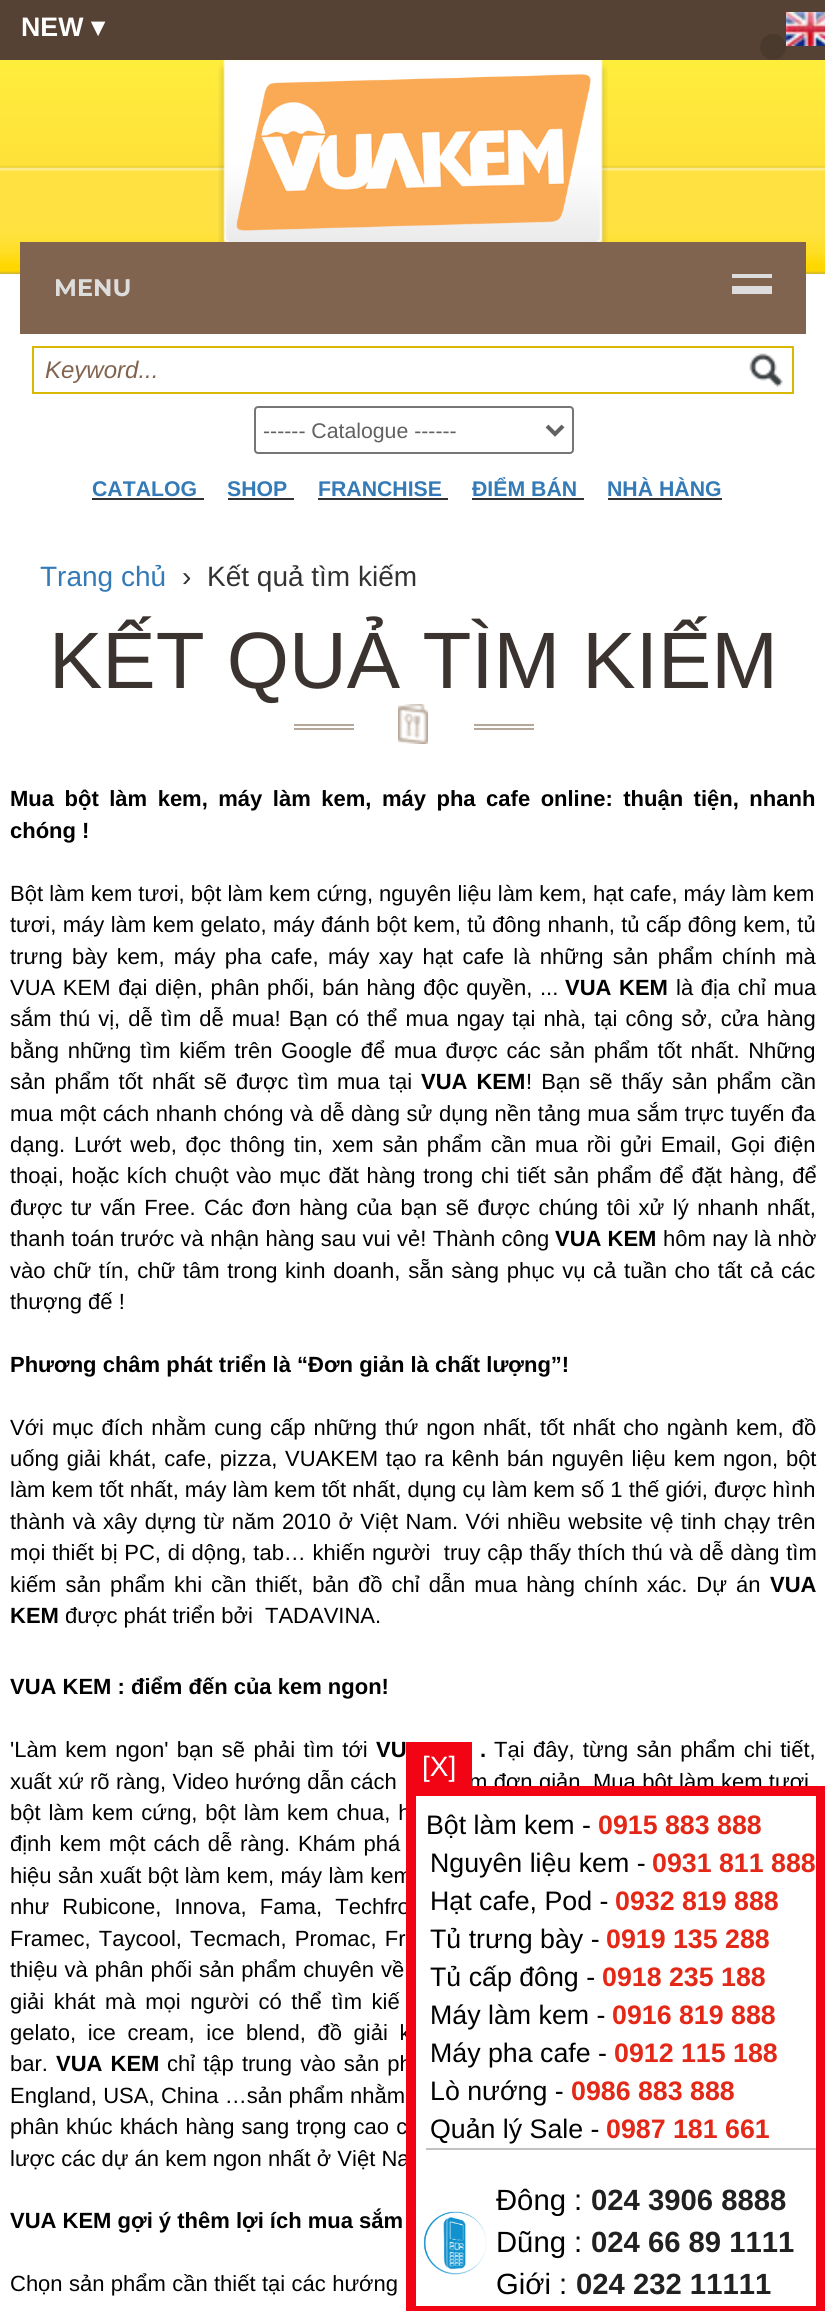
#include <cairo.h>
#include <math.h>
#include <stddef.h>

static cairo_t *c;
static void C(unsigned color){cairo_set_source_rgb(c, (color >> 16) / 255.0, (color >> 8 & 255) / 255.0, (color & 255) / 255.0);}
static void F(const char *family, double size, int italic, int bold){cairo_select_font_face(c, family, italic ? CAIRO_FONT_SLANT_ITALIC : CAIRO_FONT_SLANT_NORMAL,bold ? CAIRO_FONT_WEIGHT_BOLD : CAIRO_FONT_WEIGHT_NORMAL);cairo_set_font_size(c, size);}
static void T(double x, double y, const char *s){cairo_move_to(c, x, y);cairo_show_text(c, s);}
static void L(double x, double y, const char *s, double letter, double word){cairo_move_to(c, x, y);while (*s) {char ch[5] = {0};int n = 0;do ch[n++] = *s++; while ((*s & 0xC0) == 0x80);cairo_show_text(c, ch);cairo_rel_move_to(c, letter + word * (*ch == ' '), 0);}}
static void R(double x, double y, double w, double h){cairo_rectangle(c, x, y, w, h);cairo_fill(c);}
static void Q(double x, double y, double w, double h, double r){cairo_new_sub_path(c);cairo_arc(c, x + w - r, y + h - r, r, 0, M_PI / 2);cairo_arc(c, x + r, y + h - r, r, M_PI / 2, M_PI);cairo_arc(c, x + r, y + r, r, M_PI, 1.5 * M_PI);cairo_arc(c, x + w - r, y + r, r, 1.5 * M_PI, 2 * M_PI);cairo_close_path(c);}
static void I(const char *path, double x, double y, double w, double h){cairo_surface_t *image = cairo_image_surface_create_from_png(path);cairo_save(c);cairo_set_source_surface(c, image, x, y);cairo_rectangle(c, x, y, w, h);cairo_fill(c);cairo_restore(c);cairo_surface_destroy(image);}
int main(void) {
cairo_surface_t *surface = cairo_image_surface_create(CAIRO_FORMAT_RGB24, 825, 2311);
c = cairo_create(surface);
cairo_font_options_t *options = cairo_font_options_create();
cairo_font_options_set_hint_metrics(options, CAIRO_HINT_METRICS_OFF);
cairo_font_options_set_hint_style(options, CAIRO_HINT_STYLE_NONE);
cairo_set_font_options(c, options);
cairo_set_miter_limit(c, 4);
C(0xffffff);
cairo_paint(c);
C(0x554235);
R(0,0,825,60);
F("Liberation Sans",26.75,0,1);
C(0xffffff);
T(21,36,"NEW");
F("DejaVu Sans",26.75,0,1);
T(91,36,"▾");
C(0x4a3a2e);
cairo_new_path(c);
cairo_arc(c,773,47,13,0,2 * M_PI);
cairo_fill(c);
I("1.png",786,12,39,34);
I("2.png",0,60,825,214);
I("3.png",218,60,390,182);
I("4.png",236,74,355,157);
C(0x81644f);
R(20,242,786,92);
C(0xdddddd);
R(732,274,40,4);
F("Montserrat",24,0,1);
T(54,296,"MENU");
R(732,286,40,8);
cairo_rectangle(c,33,347,760,46);
C(0xd9b804);
cairo_stroke(c);
F("Liberation Sans",24,1,0);
C(0x81644f);
T(45,378,"Keyword...");
I("5.png",749,353,34,34);
Q(255,407,318,46,3);
C(0x767676);
cairo_stroke(c);
cairo_new_path(c);
cairo_move_to(c,547,426);
cairo_line_to(c,555,434);
cairo_line_to(c,563,426);
C(0x616161);
cairo_set_line_width(c,4);
cairo_stroke(c);
F("Liberation Sans",21.25,0,0);
T(263,438,"------ Catalogue ------");
F("Liberation Sans",21.25,0,1);
C(0x337ab7);
T(92,496,"CATALOG");
C(0x333333);
R(92,498,112,2);
C(0x337ab7);
T(227,496,"SHOP");
C(0x333333);
R(228,498,66,2);
C(0x337ab7);
T(318,496,"FRANCHISE");
C(0x333333);
R(318,498,130,2);
C(0x337ab7);
T(472,496,"ĐIỂM BÁN");
C(0x333333);
R(472,498,112,2);
C(0x337ab7);
T(607,496,"NHÀ HÀNG");
C(0x333333);
R(608,498,114,2);
F("Liberation Sans",28,0,0);
C(0x337ab7);
T(40,586,"Trang chủ");
C(0x333333);
T(182,586,"›");
T(207,586,"Kết quả tìm kiếm");
F("Liberation Sans",80,0,0);
C(0x3a332f);
T(49,688,"KẾT QUẢ TÌM KIẾM");
C(0xb5a79a);
R(294,724,60,2);
R(294,728,60,2);
I("6.png",398,704,30,40);
R(474,724,60,2);
R(474,728,60,2);
F("Liberation Sans",22,0,1);
C(0x000000);
L(10,806,"Mua bột làm kem, máy làm kem, máy pha cafe online: thuận tiện, nhanh",0,4.4);
T(10,838,"chóng !");
F("Liberation Sans",22,0,0);
T(10,901,"Bột làm kem tươi, bột làm kem cứng, nguyên liệu làm kem, hạt cafe, máy làm kem");
L(10,932,"tươi, máy làm kem gelato, máy đánh bột kem, tủ đông nhanh, tủ cấp đông kem, tủ",0,.3);
L(10,964,"trưng bày kem, máy pha cafe, máy xay hạt cafe là những sản phẩm chính mà",0,3.25);
L(10,995,"VUA KEM đại diện, phân phối, bán hàng độc quyền, ...",0,1.5);
F("Liberation Sans",22,0,1);
L(565,995,"VUA KEM",0,1.5);
F("Liberation Sans",22,0,0);
L(676,995,"là địa chỉ mua",0,1.5);
L(10,1026,"sắm thú vị, dễ tìm dễ mua! Bạn có thể mua ngay tại nhà, tại công sở, cửa hàng",0,1.9);
L(10,1058,"bằng những tìm kiếm trên Google để mua được các sản phẩm tốt nhất. Những",0,2.6);
L(10,1089,"sản phẩm tốt nhất sẽ được tìm mua tại",0,2.9);
F("Liberation Sans",22,0,1);
L(421,1089,"VUA KEM",0,2.9);
F("Liberation Sans",22,0,0);
L(526,1089,"! Bạn sẽ thấy sản phẩm cần",0,2.9);
L(10,1121,"mua một cách nhanh chóng và dễ dàng sử dụng nền tảng mua sắm trực tuyến đa",0,.5);
L(10,1152,"dạng. Lướt web, đọc thông tin, xem sản phẩm cần mua rồi gửi Email, Gọi điện",0,2.75);
L(10,1183,"thoại, hoặc kích chuột vào mục đăt hàng trong chi tiết sản phẩm để đặt hàng, để",0,1.5);
L(10,1215,"được tư vấn Free. Các đơn hàng của bạn sẽ được chúng tôi xử lý nhanh nhất,",0,2.4);
L(10,1246,"thanh toán trước và nhận hàng sau vui vẻ! Thành công",0,.25);
F("Liberation Sans",22,0,1);
T(555,1246,"VUA KEM");
F("Liberation Sans",22,0,0);
L(663,1246,"hôm nay là nhờ",0,.25);
L(10,1278,"vào chữ tín, chữ tâm trong kinh doanh, sẵn sàng phục vụ cả tuần cho tất cả các",0,1.6);
T(10,1309,"thượng đế !");
F("Liberation Sans",22,0,1);
T(10,1372,"Phương châm phát triển là “Đơn giản là chất lượng”!");
F("Liberation Sans",22,0,0);
L(10,1435,"Với mục đích nhằm cung cấp những thứ ngon nhất, tốt nhất cho ngành kem, đồ",0,1.9);
L(10,1466,"uống giải khát, cafe, pizza, VUAKEM tạo ra kênh bán nguyên liệu kem ngon, bột",0,1.7);
T(10,1497,"làm kem tốt nhất, máy làm kem tốt nhất, dụng cụ làm kem số 1 thế giới, được hình");
L(10,1529,"thành và xây dựng từ năm 2010 ở Việt Nam. Với nhiều website vệ tinh chạy trên",0,1.3);
L(10,1560,"mọi thiết bị PC, di dộng, tab… khiến người  truy cập thấy thích thú và dễ dàng tìm",0,.6);
L(10,1592,"kiếm sản phẩm khi cần thiết, bản đồ chỉ dẫn mua hàng chính xác. Dự án",0,2.9);
F("Liberation Sans",22,0,1);
T(770,1592,"VUA");
T(10,1623,"KEM");
F("Liberation Sans",22,0,0);
T(65,1623,"được phát triển bởi");
T(265,1623,"TADAVINA.");
F("Liberation Sans",22,0,1);
T(10,1694,"VUA KEM : điểm đến của kem ngon!");
F("Liberation Sans",22,0,0);
L(10,1757,"'Làm kem ngon' bạn sẽ phải tìm tới",0,2.25);
F("Liberation Sans",22,0,1);
L(376,1757,"VU",0,2.25);
L(480,1757,".",0,2.25);
F("Liberation Sans",22,0,0);
L(494,1757,"Tại đây, từng sản phẩm chi tiết,",0,2.25);
L(10,1789,"xuất xứ rõ ràng, Video hướng dẫn cách",0,.25);
L(469,1789,"m đơn giản. Mua bột làm kem tươi",0,.25);
L(10,1820,"bột làm kem cứng, bột làm kem chua, h",0,1.75);
L(10,1851,"định kem một cách dễ ràng. Khám phá",0,1.75);
L(10,1883,"hiệu sản xuất bột làm kem, máy làm kem",0,.25);
L(10,1914,"như Rubicone, Innova, Fama, Techfro",0,7);
L(10,1946,"Framec, Taycool, Tecmach, Promac, Fr",0,2);
L(10,1977,"thiệu và phân phối sản phẩm chuyên về",0,.75);
L(10,2009,"giải khát mà mọi người có thể tìm kiế",0,3.5);
L(10,2040,"gelato, ice cream, ice blend, đồ giải k",0,5.5);
T(10,2071,"bar.");
F("Liberation Sans",22,0,1);
L(56,2071,"VUA KEM",0,2);
F("Liberation Sans",22,0,0);
L(167,2071,"chỉ tập trung vào sản ph",0,2);
L(10,2103,"England, USA, China …sản phẩm nhằm",0,.25);
L(10,2134,"phân khúc khách hàng sang trọng cao c",0,1);
T(10,2166,"lược các dự án kem ngon nhất ở Việt Na");
F("Liberation Sans",22,0,1);
T(10,2228,"VUA KEM gợi ý thêm lợi ích mua sắm");
F("Liberation Sans",22,0,0);
L(10,2291,"Chọn sản phẩm cần thiết tại các hướng",0,.25);
C(0xf30415);
R(406,1742,66,44);
F("Liberation Sans",28,0,0);
C(0xffffff);
T(422,1776,"[X]");
cairo_rectangle(c,411,1791,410,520);
C(0xf30415);
cairo_set_line_width(c,10);
cairo_stroke(c);
F("Liberation Sans",26.75,0,0);
C(0x000000);
T(426,1834,"Bột làm kem -");
F("Liberation Sans",26.75,0,1);
C(0xe42817);
T(598,1834,"0915 883 888");
F("Liberation Sans",26.75,0,0);
C(0x000000);
T(430,1872,"Nguyên liệu kem -");
F("Liberation Sans",26.75,0,1);
C(0xe42817);
T(652,1872,"0931 811 888");
F("Liberation Sans",26.75,0,0);
C(0x000000);
T(430,1910,"Hạt cafe, Pod -");
F("Liberation Sans",26.75,0,1);
C(0xe42817);
T(615,1910,"0932 819 888");
F("Liberation Sans",26.75,0,0);
C(0x000000);
T(430,1948,"Tủ trưng bày -");
F("Liberation Sans",26.75,0,1);
C(0xe42817);
T(606,1948,"0919 135 288");
F("Liberation Sans",26.75,0,0);
C(0x000000);
T(430,1986,"Tủ cấp đông -");
F("Liberation Sans",26.75,0,1);
C(0xe42817);
T(602,1986,"0918 235 188");
F("Liberation Sans",26.75,0,0);
C(0x000000);
T(430,2024,"Máy làm kem -");
F("Liberation Sans",26.75,0,1);
C(0xe42817);
T(612,2024,"0916 819 888");
F("Liberation Sans",26.75,0,0);
C(0x000000);
T(430,2062,"Máy pha cafe -");
F("Liberation Sans",26.75,0,1);
C(0xe42817);
T(614,2062,"0912 115 188");
F("Liberation Sans",26.75,0,0);
C(0x000000);
T(430,2100,"Lò nướng -");
F("Liberation Sans",26.75,0,1);
C(0xe42817);
T(571,2100,"0986 883 888");
F("Liberation Sans",26.75,0,0);
C(0x000000);
T(430,2138,"Quản lý Sale -");
F("Liberation Sans",26.75,0,1);
C(0xe42817);
T(606,2138,"0987 181 661");
C(0xc1c1c1);
R(426,2148,390,2);
F("Liberation Sans",29.25,0,0);
C(0x000000);
T(496,2210,"Đông :");
F("Liberation Sans",29.25,0,1);
C(0x212121);
T(591,2210,"024 3906 8888");
I("7.png",423,2211,64,64);
F("Liberation Sans",29.25,0,0);
C(0x000000);
T(496,2252,"Dũng :");
F("Liberation Sans",29.25,0,1);
C(0x212121);
T(591,2252,"024 66 89 1111");
F("Liberation Sans",29.25,0,0);
C(0x000000);
T(496,2294,"Giới :");
F("Liberation Sans",29.25,0,1);
C(0x212121);
T(576,2294,"024 232 11111");
cairo_surface_write_to_png(surface, "o.png");
cairo_font_options_destroy(options);
cairo_destroy(c);
cairo_surface_destroy(surface);
return 0;
}
